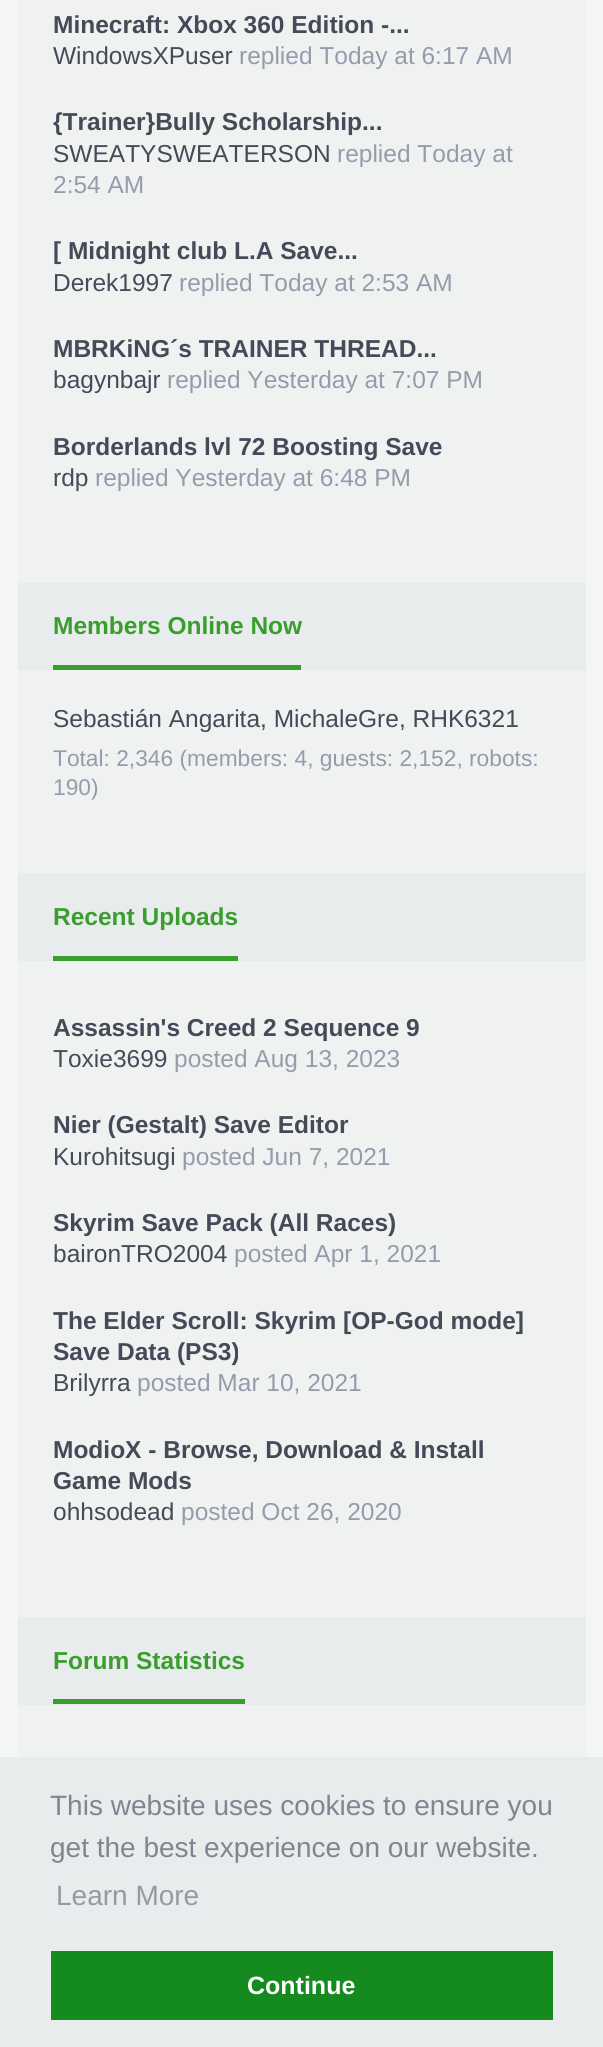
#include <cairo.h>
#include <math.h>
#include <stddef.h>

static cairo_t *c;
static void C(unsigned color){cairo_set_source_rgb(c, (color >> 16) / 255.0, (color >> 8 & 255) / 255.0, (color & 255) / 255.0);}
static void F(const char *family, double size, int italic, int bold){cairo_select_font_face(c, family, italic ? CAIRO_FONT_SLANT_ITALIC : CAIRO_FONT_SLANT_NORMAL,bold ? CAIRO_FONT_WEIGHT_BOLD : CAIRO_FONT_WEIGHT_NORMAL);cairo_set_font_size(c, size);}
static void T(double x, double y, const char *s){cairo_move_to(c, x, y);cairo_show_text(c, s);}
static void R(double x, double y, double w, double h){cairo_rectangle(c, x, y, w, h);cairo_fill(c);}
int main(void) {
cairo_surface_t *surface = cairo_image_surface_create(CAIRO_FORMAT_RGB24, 603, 2047);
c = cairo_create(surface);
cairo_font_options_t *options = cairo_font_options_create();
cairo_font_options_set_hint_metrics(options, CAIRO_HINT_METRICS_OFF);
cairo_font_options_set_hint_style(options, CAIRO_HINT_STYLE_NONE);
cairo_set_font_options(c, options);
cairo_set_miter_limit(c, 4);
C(0xf4f6f6);
cairo_paint(c);
C(0xf0f2f2);
R(18,0,568,1757);
F("Liberation Sans",24.5,0,1);
C(0x464a58);
T(53,33,"Minecraft: Xbox 360 Edition -...");
F("Liberation Sans",24.5,0,0);
T(53,64,"WindowsXPuser");
C(0x969bac);
T(239,64,"replied Today at 6:17 AM");
F("Liberation Sans",24.5,0,1);
C(0x464a58);
T(53,130,"{Trainer}Bully Scholarship...");
F("Liberation Sans",24.5,0,0);
T(53,162,"SWEATYSWEATERSON");
C(0x969bac);
T(337,162,"replied Today at");
T(53,193,"2:54 AM");
F("Liberation Sans",24.5,0,1);
C(0x464a58);
T(53,259,"[ Midnight club L.A Save...");
F("Liberation Sans",24.5,0,0);
T(53,291,"Derek1997");
C(0x969bac);
T(179,291,"replied Today at 2:53 AM");
F("Liberation Sans",24.5,0,1);
C(0x464a58);
T(53,357,"MBRKiNG´s TRAINER THREAD...");
F("Liberation Sans",24.5,0,0);
T(53,388,"bagynbajr");
C(0x969bac);
T(167,388,"replied Yesterday at 7:07 PM");
F("Liberation Sans",24.5,0,1);
C(0x464a58);
T(53,455,"Borderlands lvl 72 Boosting Save");
F("Liberation Sans",24.5,0,0);
T(53,486,"rdp");
C(0x969bac);
T(95,486,"replied Yesterday at 6:48 PM");
C(0xe9ecec);
R(18,583,568,87);
F("Liberation Sans",24.5,0,1);
C(0x399e2d);
T(53,634,"Members Online Now");
R(53,665,248,5);
F("Liberation Sans",24.5,0,0);
C(0x464a58);
T(53,727,"Sebastián Angarita, MichaleGre, RHK6321");
F("Liberation Sans",22.75,0,0);
C(0x969bac);
T(53,766,"Total: 2,346 (members: 4, guests: 2,152, robots:");
T(53,795,"190)");
C(0xe9ecec);
R(18,873,568,88);
F("Liberation Sans",24.5,0,1);
C(0x399e2d);
T(53,925,"Recent Uploads");
R(53,956,185,5);
C(0x464a58);
T(53,1036,"Assassin's Creed 2 Sequence 9");
F("Liberation Sans",24.5,0,0);
T(53,1067,"Toxie3699");
C(0x969bac);
T(174,1067,"posted Aug 13, 2023");
F("Liberation Sans",24.5,0,1);
C(0x464a58);
T(53,1133,"Nier (Gestalt) Save Editor");
F("Liberation Sans",24.5,0,0);
T(53,1165,"Kurohitsugi");
C(0x969bac);
T(182,1165,"posted Jun 7, 2021");
F("Liberation Sans",24.5,0,1);
C(0x464a58);
T(53,1231,"Skyrim Save Pack (All Races)");
F("Liberation Sans",24.5,0,0);
T(53,1262,"baironTRO2004");
C(0x969bac);
T(234,1262,"posted Apr 1, 2021");
cairo_save(c);
cairo_rectangle(c,53,1288,498,130);
cairo_clip(c);
F("Liberation Sans",24.5,0,1);
C(0x464a58);
T(53,1329,"The Elder Scroll: Skyrim [OP-God mode]");
cairo_restore(c);
F("Liberation Sans",24.5,0,1);
C(0x464a58);
T(53,1360,"Save Data (PS3)");
F("Liberation Sans",24.5,0,0);
T(53,1391,"Brilyrra");
C(0x969bac);
T(137,1391,"posted Mar 10, 2021");
F("Liberation Sans",24.5,0,1);
C(0x464a58);
T(53,1458,"ModioX - Browse, Download & Install");
T(53,1489,"Game Mods");
F("Liberation Sans",24.5,0,0);
T(53,1520,"ohhsodead");
C(0x969bac);
T(181,1520,"posted Oct 26, 2020");
C(0xe9ecec);
R(18,1617,568,88);
F("Liberation Sans",24.5,0,1);
C(0x399e2d);
T(53,1669,"Forum Statistics");
R(53,1699,192,5);
C(0xe9ecec);
R(0,1757,603,290);
F("Liberation Sans",28,0,0);
C(0x838391);
T(50,1815,"This website uses cookies to ensure you");
T(50,1857,"get the best experience on our website.");
C(0x9798a3);
T(56,1905,"Learn More");
C(0x158a1f);
R(51,1951,502,69);
F("Liberation Sans",25,0,1);
C(0xffffff);
T(247,1994,"Continue");
cairo_surface_write_to_png(surface, "o.png");
cairo_font_options_destroy(options);
cairo_destroy(c);
cairo_surface_destroy(surface);
return 0;
}
